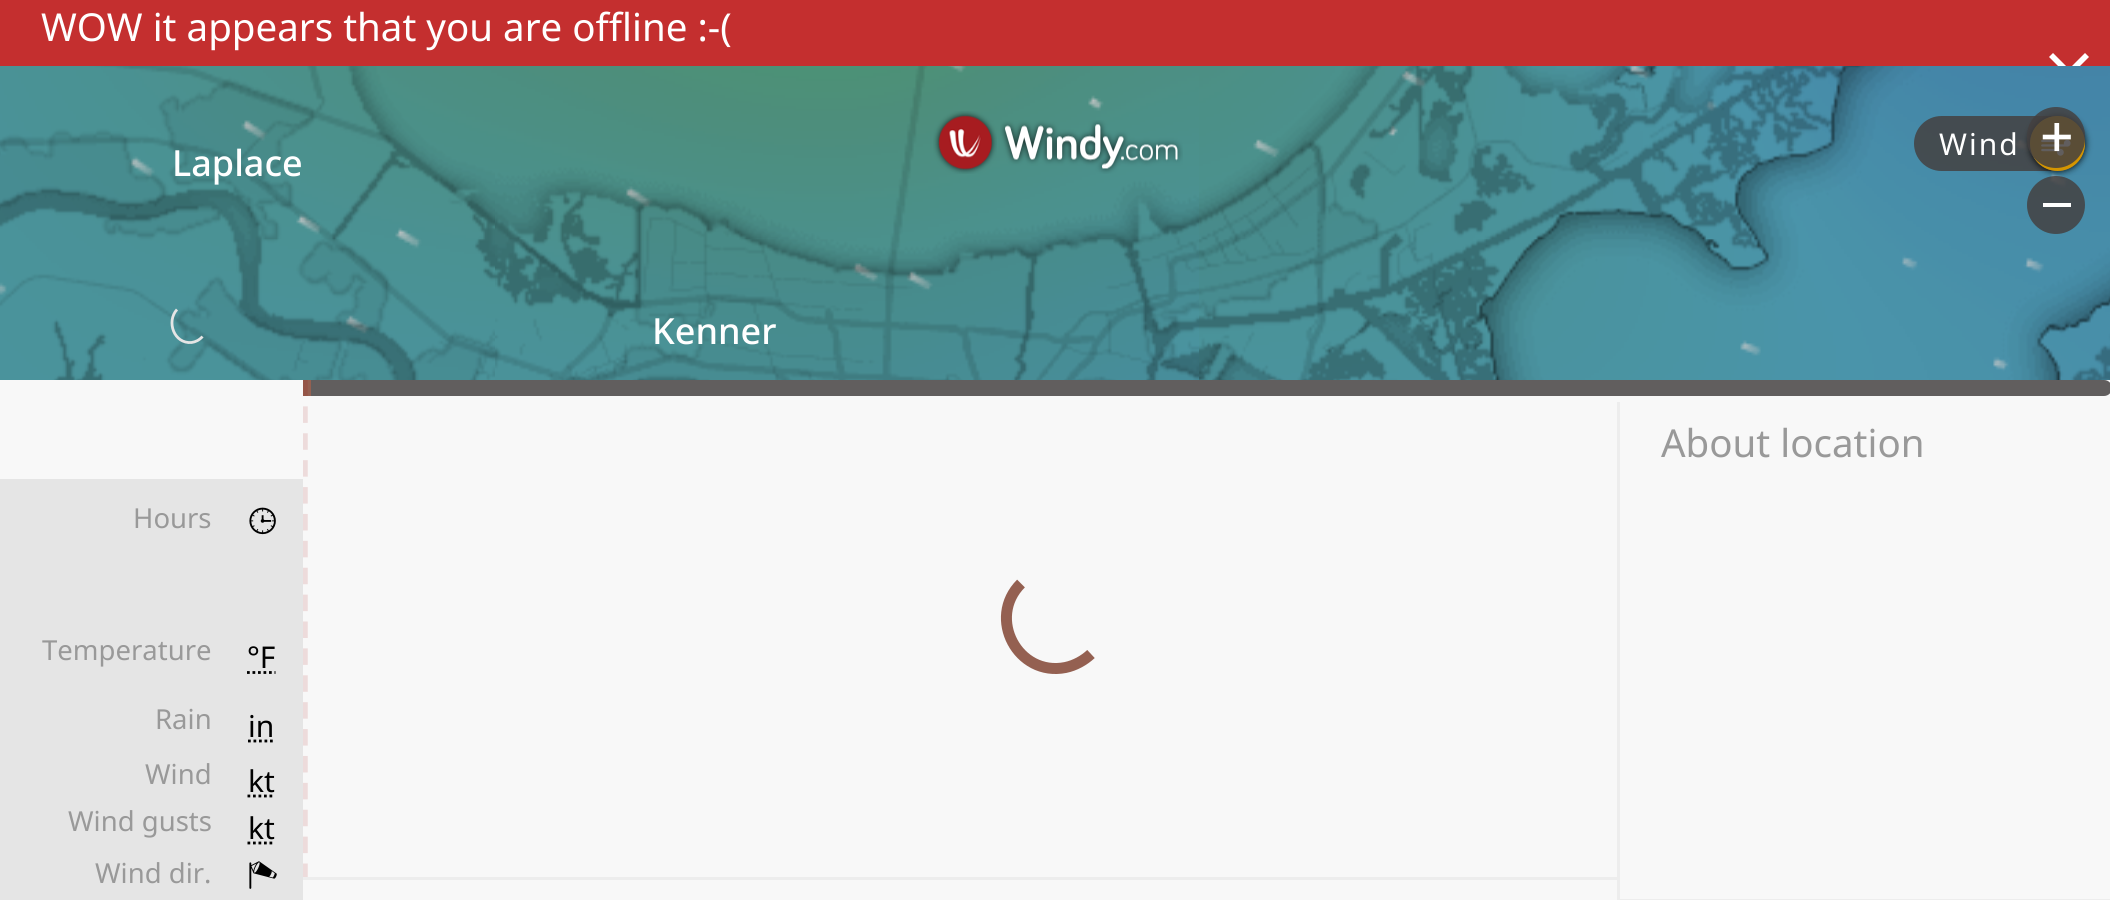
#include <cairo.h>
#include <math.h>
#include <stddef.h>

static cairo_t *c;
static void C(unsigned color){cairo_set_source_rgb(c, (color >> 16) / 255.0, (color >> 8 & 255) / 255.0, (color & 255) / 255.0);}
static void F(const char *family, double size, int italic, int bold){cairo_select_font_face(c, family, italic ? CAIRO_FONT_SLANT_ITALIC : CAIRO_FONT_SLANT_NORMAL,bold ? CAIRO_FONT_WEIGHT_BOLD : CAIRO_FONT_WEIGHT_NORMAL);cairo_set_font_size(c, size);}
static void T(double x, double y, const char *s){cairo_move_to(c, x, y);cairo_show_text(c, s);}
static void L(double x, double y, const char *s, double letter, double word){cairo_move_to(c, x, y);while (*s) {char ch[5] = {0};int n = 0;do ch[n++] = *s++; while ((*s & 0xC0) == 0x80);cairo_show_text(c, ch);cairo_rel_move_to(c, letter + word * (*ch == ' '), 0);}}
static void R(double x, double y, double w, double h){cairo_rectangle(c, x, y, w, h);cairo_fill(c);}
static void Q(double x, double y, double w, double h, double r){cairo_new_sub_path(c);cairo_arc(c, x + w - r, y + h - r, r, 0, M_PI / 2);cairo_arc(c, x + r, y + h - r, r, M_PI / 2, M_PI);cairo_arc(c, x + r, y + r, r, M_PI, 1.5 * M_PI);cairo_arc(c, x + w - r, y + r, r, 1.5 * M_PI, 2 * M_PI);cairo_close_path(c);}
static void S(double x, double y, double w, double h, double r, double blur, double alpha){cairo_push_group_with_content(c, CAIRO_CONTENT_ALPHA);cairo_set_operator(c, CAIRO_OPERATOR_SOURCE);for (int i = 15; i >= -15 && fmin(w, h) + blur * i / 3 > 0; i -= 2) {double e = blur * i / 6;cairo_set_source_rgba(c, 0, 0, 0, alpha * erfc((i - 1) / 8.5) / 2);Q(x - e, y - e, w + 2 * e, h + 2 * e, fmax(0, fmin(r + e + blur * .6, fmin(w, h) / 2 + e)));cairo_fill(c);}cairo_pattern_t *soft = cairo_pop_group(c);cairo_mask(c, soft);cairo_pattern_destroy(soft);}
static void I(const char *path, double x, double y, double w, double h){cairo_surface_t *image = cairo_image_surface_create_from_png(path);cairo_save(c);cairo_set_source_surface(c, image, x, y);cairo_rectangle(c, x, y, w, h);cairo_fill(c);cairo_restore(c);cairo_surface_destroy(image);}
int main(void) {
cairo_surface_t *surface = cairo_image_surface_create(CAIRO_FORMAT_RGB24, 2110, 900);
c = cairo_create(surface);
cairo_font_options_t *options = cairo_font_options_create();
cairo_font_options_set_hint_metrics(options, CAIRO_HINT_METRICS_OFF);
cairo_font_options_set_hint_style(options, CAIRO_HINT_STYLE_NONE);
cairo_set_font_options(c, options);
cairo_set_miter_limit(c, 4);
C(0xffffff);
cairo_paint(c);
C(0xc42f2f);
R(0,0,2110,66);
F("Noto Sans",38.5,0,0);
C(0xffffff);
T(41,41,"WOW it appears that you are offline :-(");
cairo_save(c);
cairo_rectangle(c,0,0,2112,66);
cairo_clip(c);
cairo_new_path(c);
cairo_move_to(c,2089,57);
cairo_line_to(c,2085,53);
cairo_line_to(c,2069,69);
cairo_line_to(c,2053,53);
cairo_line_to(c,2049,57);
cairo_line_to(c,2065,73);
cairo_line_to(c,2049,89);
cairo_line_to(c,2053,93);
cairo_line_to(c,2069,77);
cairo_line_to(c,2085,93);
cairo_line_to(c,2089,89);
cairo_line_to(c,2073,73);
cairo_close_path(c);
cairo_fill(c);
cairo_restore(c);
I("6.png",495,66,704,314);
I("5.png",0,66,495,314);
I("7.png",1199,66,704,314);
I("8.png",1903,66,207,314);
I("9.png",0,66,2069,314);
I("11.png",495,66,704,314);
I("1.png",933,111,64,63);
I("2.png",1000,120,183,54);
I("13.png",1903,66,207,314);
cairo_set_source_rgba(c,0.267,0.255,0.255,0.84);
Q(1914,116,171,55,27.5);
cairo_fill(c);
F("Noto Sans",30,0,0);
C(0xffffff);
L(1939,155,"Wind",2,0);
cairo_save(c);
cairo_set_fill_rule(c,CAIRO_FILL_RULE_EVEN_ODD);
cairo_new_path(c);
cairo_move_to(c,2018,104);
cairo_line_to(c,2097,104);
cairo_line_to(c,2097,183);
cairo_line_to(c,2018,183);
cairo_close_path(c);
cairo_move_to(c,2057.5,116);
cairo_curve_to(c,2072.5,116,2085,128.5,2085,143.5);
cairo_curve_to(c,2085,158.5,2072.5,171,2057.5,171);
cairo_curve_to(c,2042.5,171,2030,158.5,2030,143.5);
cairo_curve_to(c,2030,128.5,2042.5,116,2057.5,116);
cairo_close_path(c);
cairo_clip(c);
C(0x000000);
S(2030,116,55,55,27.5,3.5,1);
cairo_restore(c);
C(0xd49500);
cairo_arc(c,2057.5,143.5,27.5,0,2 * M_PI);
cairo_fill(c);
I("3.png",2041,139,30,17);
cairo_set_source_rgba(c,0.267,0.255,0.255,0.84);
Q(2027,107,58,61,29);
cairo_fill(c);
I("4.png",2042,123,29,29);
cairo_arc(c,2056,205,29,0,2 * M_PI);
cairo_fill(c);
C(0xffffff);
R(2043,203,28,4);
I("10.png",0,66,495,314);
I("12.png",1199,66,704,314);
F("Noto Sans Medium",36,0,0);
T(172,176,"Laplace");
T(652,344,"Kenner");
cairo_new_path(c);
cairo_move_to(c,202.5,336.5);
cairo_curve_to(c,199.5,340,195.5,342,191.5,342.5);
cairo_curve_to(c,174,344,166,321.5,177,309.5);
C(0xe5e5e5);
cairo_set_line_width(c,2.8);
cairo_stroke(c);
C(0xf8f8f8);
R(0,380,2110,520);
C(0x615e5e);
Q(303,380,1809,16,8);
cairo_fill(c);
C(0x946051);
R(303,380,8,16);
cairo_save(c);
cairo_rectangle(c,303,380,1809,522);
cairo_clip(c);
cairo_new_path(c);
cairo_move_to(c,305,379.5);
cairo_line_to(c,305,880);
cairo_set_source_rgba(c,0.616,0.012,0,0.12);
cairo_set_line_width(c,5.5);
cairo_set_dash(c,(double[]){16.5,10.39},2,0);
cairo_stroke(c);
cairo_restore(c);
C(0xededed);
R(1617,899,493,1);
R(1617,402,3,498);
R(303,877,1317,3);
F("Noto Sans",38.5,0,0);
C(0x999999);
T(1661,457,"About location");
C(0xe5e5e5);
R(0,479,303,421);
F("Noto Sans",27.5,0,0);
C(0x999999);
T(133,528,"Hours");
I("14.png",249,507,27,28);
T(42,660,"Temperature");
F("Noto Sans",30,0,0);
C(0x000000);
T(247,668,"°F");
cairo_new_path(c);
cairo_move_to(c,247,672.5);
cairo_line_to(c,275.5,672.5);
cairo_set_dash(c,(double[]){2.75,2.75},2,0);
cairo_stroke(c);
F("Noto Sans",27.5,0,0);
C(0x999999);
T(155,729,"Rain");
F("Noto Sans",30,0,0);
C(0x000000);
T(248,737,"in");
cairo_new_path(c);
cairo_move_to(c,248,741);
cairo_line_to(c,274.5,741);
cairo_stroke(c);
F("Noto Sans",27.5,0,0);
C(0x999999);
T(145,784,"Wind");
F("Noto Sans",30,0,0);
C(0x000000);
T(248,792,"kt");
cairo_new_path(c);
cairo_move_to(c,247.5,796);
cairo_line_to(c,275,796);
cairo_stroke(c);
F("Noto Sans",27.5,0,0);
C(0x999999);
T(68,831,"Wind gusts");
F("Noto Sans",30,0,0);
C(0x000000);
T(248,839,"kt");
cairo_new_path(c);
cairo_move_to(c,247.5,843);
cairo_line_to(c,275,843);
cairo_stroke(c);
F("Noto Sans",27.5,0,0);
C(0x999999);
T(95,883,"Wind dir.");
I("15.png",249,861,28,28);
cairo_new_path(c);
cairo_move_to(c,1091,654);
cairo_curve_to(c,1084,660.5,1075,665.5,1065.5,667.5);
cairo_curve_to(c,1018,677,986.5,618,1021,583.5);
C(0x946051);
cairo_set_line_width(c,11);
cairo_set_dash(c,NULL,0,0);
cairo_stroke(c);
cairo_surface_write_to_png(surface, "o.png");
cairo_font_options_destroy(options);
cairo_destroy(c);
cairo_surface_destroy(surface);
return 0;
}
